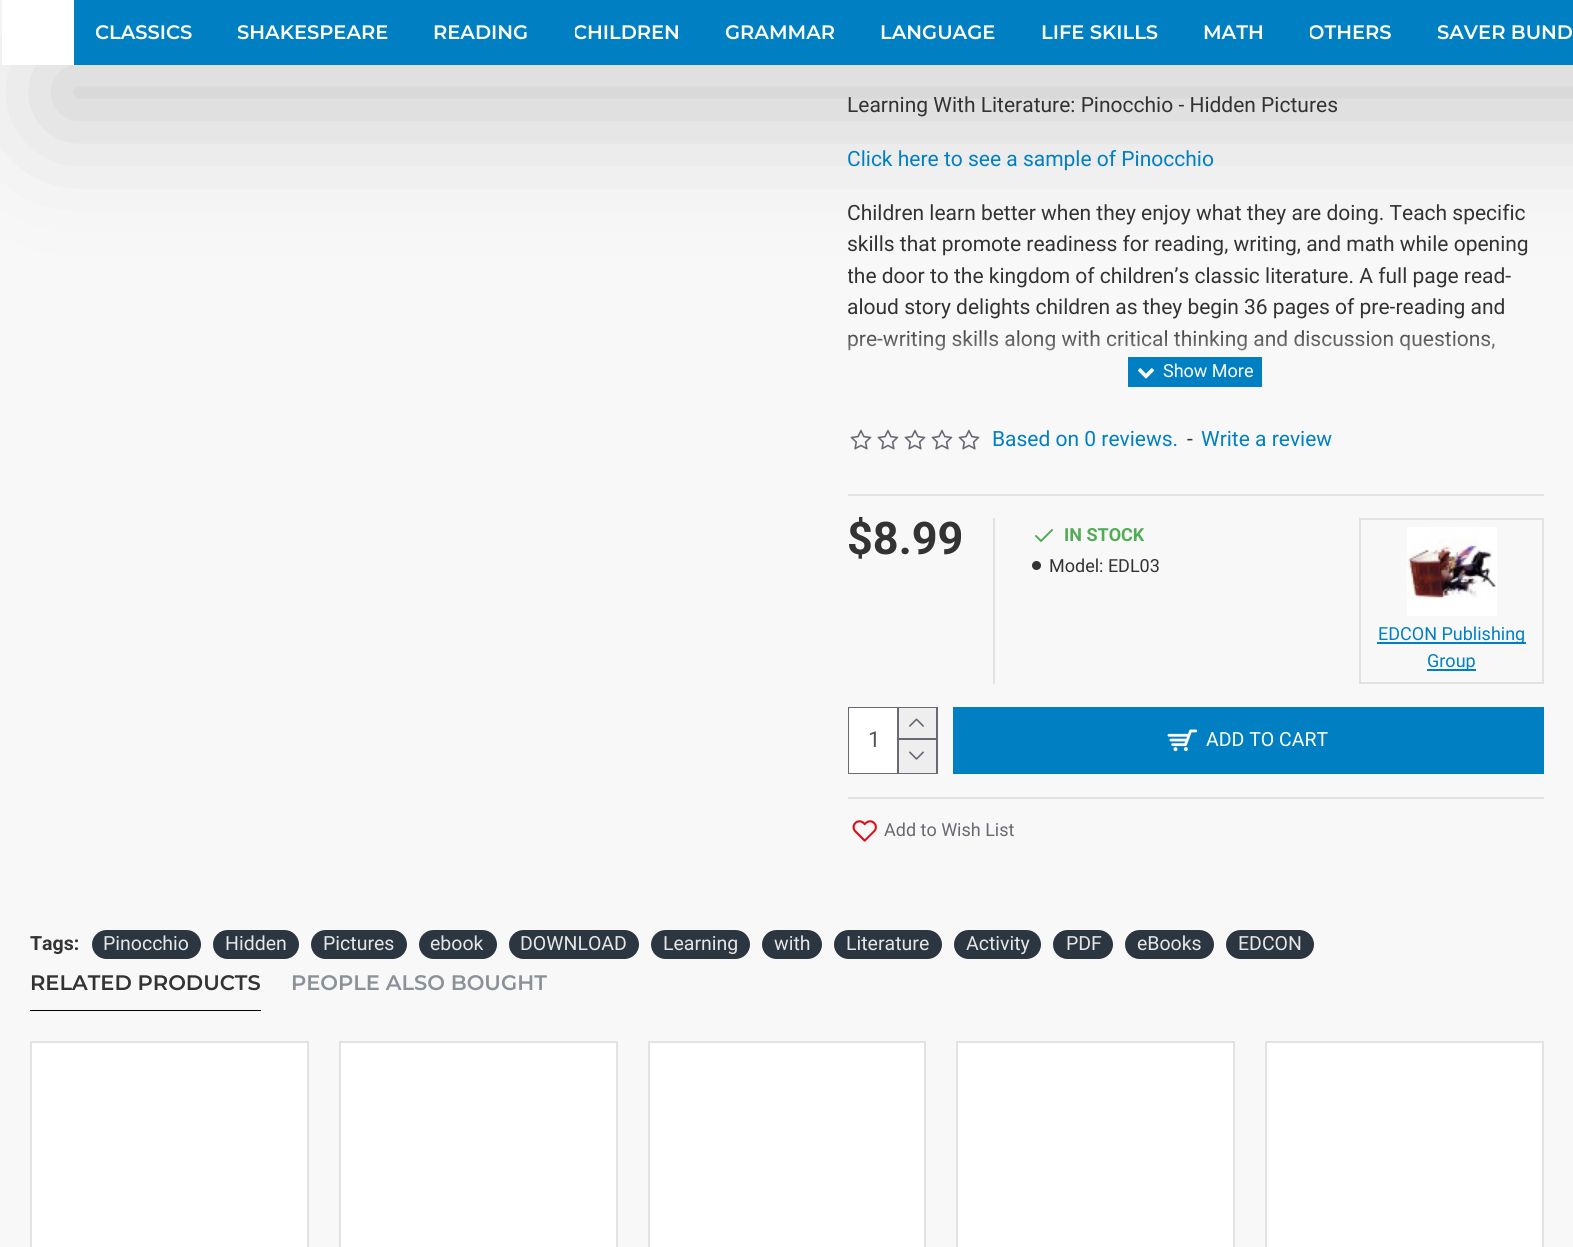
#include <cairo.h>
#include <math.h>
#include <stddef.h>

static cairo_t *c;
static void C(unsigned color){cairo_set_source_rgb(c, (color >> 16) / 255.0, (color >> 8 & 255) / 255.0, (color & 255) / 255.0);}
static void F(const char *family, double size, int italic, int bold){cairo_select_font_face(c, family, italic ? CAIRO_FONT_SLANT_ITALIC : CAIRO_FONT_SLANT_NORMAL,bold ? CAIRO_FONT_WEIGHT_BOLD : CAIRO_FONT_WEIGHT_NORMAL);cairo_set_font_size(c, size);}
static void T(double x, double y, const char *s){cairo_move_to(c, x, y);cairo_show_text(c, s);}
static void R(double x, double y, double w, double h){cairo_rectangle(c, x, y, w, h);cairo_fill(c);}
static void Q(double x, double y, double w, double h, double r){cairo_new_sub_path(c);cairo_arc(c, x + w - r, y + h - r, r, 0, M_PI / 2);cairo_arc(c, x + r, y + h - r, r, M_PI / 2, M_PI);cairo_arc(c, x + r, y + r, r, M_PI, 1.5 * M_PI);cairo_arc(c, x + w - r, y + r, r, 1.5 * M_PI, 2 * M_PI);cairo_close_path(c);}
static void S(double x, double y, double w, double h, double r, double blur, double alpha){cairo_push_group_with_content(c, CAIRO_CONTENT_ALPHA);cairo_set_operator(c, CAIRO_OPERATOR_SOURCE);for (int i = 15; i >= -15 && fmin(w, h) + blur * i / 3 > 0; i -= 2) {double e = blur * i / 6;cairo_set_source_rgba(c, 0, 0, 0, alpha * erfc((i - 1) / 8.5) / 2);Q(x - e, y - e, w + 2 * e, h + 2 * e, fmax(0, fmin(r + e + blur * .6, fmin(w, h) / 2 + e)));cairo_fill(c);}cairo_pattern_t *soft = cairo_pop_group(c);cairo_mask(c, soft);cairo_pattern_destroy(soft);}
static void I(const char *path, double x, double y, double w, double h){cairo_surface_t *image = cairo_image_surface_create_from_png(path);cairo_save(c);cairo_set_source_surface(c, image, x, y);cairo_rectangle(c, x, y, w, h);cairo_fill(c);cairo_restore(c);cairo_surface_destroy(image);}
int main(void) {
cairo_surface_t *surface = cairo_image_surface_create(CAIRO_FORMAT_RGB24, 1573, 1247);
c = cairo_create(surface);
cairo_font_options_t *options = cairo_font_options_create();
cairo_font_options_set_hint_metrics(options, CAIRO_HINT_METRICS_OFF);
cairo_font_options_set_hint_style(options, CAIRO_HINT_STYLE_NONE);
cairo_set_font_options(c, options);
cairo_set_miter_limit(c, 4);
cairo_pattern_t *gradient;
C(0xf8f8f8);
cairo_paint(c);
C(0x000000);
S(62,75,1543,35,0,67.5,.2);
C(0x0080c3);
R(74,0,1499,65);
C(0xffffff);
R(2,0,72,65);
cairo_save(c);
cairo_rectangle(c,96,18,96,29);
cairo_clip(c);
F("Montserrat SemiBold",19.5,0,0);
T(95,39,"CLASSICS");
cairo_restore(c);
F("Montserrat SemiBold",19.5,0,0);
T(237,39,"SHAKESPEARE");
T(433,39,"READING");
cairo_save(c);
cairo_rectangle(c,575,18,106,29);
cairo_clip(c);
T(573,39,"CHILDREN");
cairo_restore(c);
T(725,39,"GRAMMAR");
T(880,39,"LANGUAGE");
T(1041,39,"LIFE SKILLS");
T(1203,39,"MATH");
cairo_save(c);
cairo_rectangle(c,1310,18,82,29);
cairo_clip(c);
T(1308,39,"OTHERS");
cairo_restore(c);
T(1437,39,"SAVER BUND");
F("Roboto",21,0,0);
C(0x333333);
T(847,112,"Learning With Literature: Pinocchio - Hidden Pictures");
C(0x0080c3);
T(847,166,"Click here to see a sample of Pinocchio");
C(0x333333);
T(847,220,"Children learn better when they enjoy what they are doing. Teach specific");
T(847,251,"skills that promote readiness for reading, writing, and math while opening");
cairo_save(c);
cairo_rectangle(c,848,5,696,382);
cairo_clip(c);
T(847,283,"the door to the kingdom of children’s classic literature. A full page read-");
cairo_restore(c);
T(847,314,"aloud story delights children as they begin 36 pages of pre-reading and");
T(847,346,"pre-writing skills along with critical thinking and discussion questions,");
gradient = cairo_pattern_create_linear(1196,327,1196,387);
cairo_pattern_add_color_stop_rgba(gradient,0,0.973,0.973,0.973,0);
cairo_pattern_add_color_stop_rgba(gradient,1,0.973,0.973,0.973,1);
cairo_set_source(c,gradient);
cairo_pattern_destroy(gradient);
R(848,330,647,21);
C(0x0080c3);
R(1128,357,134,30);
I("1.png",1138,368,16,11);
F("Roboto",18,0,0);
C(0xffffff);
T(1163,377,"Show More");
C(0xe2e2e2);
R(848,494,696,2);
I("2.png",850,429,22,21);
I("2.png",877,429,22,21);
I("2.png",904,429,22,21);
I("2.png",931,429,22,21);
I("2.png",958,429,22,21);
F("Roboto",21,0,0);
C(0x0080c3);
T(992,446,"Based on 0 reviews.");
C(0x333333);
T(1187,446,"-");
C(0x0080c3);
T(1201,446,"Write a review");
F("Roboto",45,0,1);
C(0x333333);
T(847,554,"$8.99");
C(0xe2e2e2);
R(993,518,2,166);
I("3.png",1035,529,18,13);
F("Roboto",18,0,1);
C(0x50ad55);
T(1064,541,"IN STOCK");
I("4.png",1032,561,9,9);
F("Roboto",18,0,0);
C(0x333333);
T(1049,572,"Model: EDL03");
cairo_rectangle(c,1360,519,183,164);
C(0xe2e2e2);
cairo_stroke(c);
I("5.png",1407,527,90,89);
C(0x0080c3);
R(1377,642,149,2);
T(1378,640,"EDCON Publishing");
R(1427,669,49,2);
T(1427,667,"Group");
cairo_rectangle(c,849,708,88,65);
C(0x696973);
cairo_stroke(c);
C(0xffffff);
R(849,708,48,65);
F("Roboto",22,0,0);
C(0x555555);
T(868,747,"1");
C(0x696973);
R(897,708,2,65);
C(0xeeeeee);
R(899,708,37,30);
C(0x696973);
R(899,738,37,2);
I("6.png",909,718,15,9);
C(0xeeeeee);
R(899,740,37,33);
I("7.png",909,751,15,9);
C(0x0080c3);
R(953,707,591,67);
I("8.png",1167,729,31,23);
F("Roboto",19.5,0,0);
C(0xffffff);
T(1206,746,"ADD TO CART");
C(0xe2e2e2);
R(848,797,696,2);
I("9.png",852,820,25,22);
F("Roboto",18,0,0);
C(0x696973);
T(884,836,"Add to Wish List");
F("Roboto",19.5,0,1);
C(0x333333);
T(30,950,"Tags:");
C(0x2c3640);
Q(92,930,109,29,14.5);
cairo_fill(c);
F("Roboto",19.5,0,0);
C(0xe6e6e6);
T(103,950,"Pinocchio");
C(0x2c3640);
Q(213,930,86,29,14.5);
cairo_fill(c);
C(0xe6e6e6);
T(225,950,"Hidden");
C(0x2c3640);
Q(311,930,96,29,14.5);
cairo_fill(c);
C(0xe6e6e6);
T(323,950,"Pictures");
C(0x2c3640);
Q(419,930,78,29,14.5);
cairo_fill(c);
C(0xe6e6e6);
T(430,950,"ebook");
C(0x2c3640);
Q(509,930,130,29,14.5);
cairo_fill(c);
C(0xe6e6e6);
T(520,950,"DOWNLOAD");
C(0x2c3640);
Q(651,930,99,29,14.5);
cairo_fill(c);
C(0xe6e6e6);
T(663,950,"Learning");
C(0x2c3640);
Q(762,930,60,29,14.5);
cairo_fill(c);
C(0xe6e6e6);
T(774,950,"with");
C(0x2c3640);
Q(834,930,108,29,14.5);
cairo_fill(c);
C(0xe6e6e6);
T(846,950,"Literature");
C(0x2c3640);
Q(954,930,87,29,14.5);
cairo_fill(c);
C(0xe6e6e6);
T(966,950,"Activity");
C(0x2c3640);
Q(1053,930,60,29,14.5);
cairo_fill(c);
C(0xe6e6e6);
T(1066,950,"PDF");
C(0x2c3640);
Q(1125,930,89,29,14.5);
cairo_fill(c);
C(0xe6e6e6);
T(1137,950,"eBooks");
C(0x2c3640);
Q(1226,930,88,29,14.5);
cairo_fill(c);
C(0xe6e6e6);
T(1238,950,"EDCON");
C(0x000000);
R(30,1010,231,1);
F("Montserrat SemiBold",21,0,0);
C(0x333333);
T(30,990,"RELATED PRODUCTS");
C(0x8b9198);
T(291,990,"PEOPLE ALSO BOUGHT");
C(0xffffff);
cairo_rectangle(c,31,1042,277,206);
cairo_fill_preserve(c);
C(0xe2e2e2);
cairo_stroke(c);
C(0xffffff);
cairo_rectangle(c,340,1042,277,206);
cairo_fill_preserve(c);
C(0xe2e2e2);
cairo_stroke(c);
C(0xffffff);
cairo_rectangle(c,649,1042,276,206);
cairo_fill_preserve(c);
C(0xe2e2e2);
cairo_stroke(c);
C(0xffffff);
cairo_rectangle(c,957,1042,277,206);
cairo_fill_preserve(c);
C(0xe2e2e2);
cairo_stroke(c);
C(0xffffff);
cairo_rectangle(c,1266,1042,277,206);
cairo_fill_preserve(c);
C(0xe2e2e2);
cairo_stroke(c);
cairo_surface_write_to_png(surface, "o.png");
cairo_font_options_destroy(options);
cairo_destroy(c);
cairo_surface_destroy(surface);
return 0;
}
